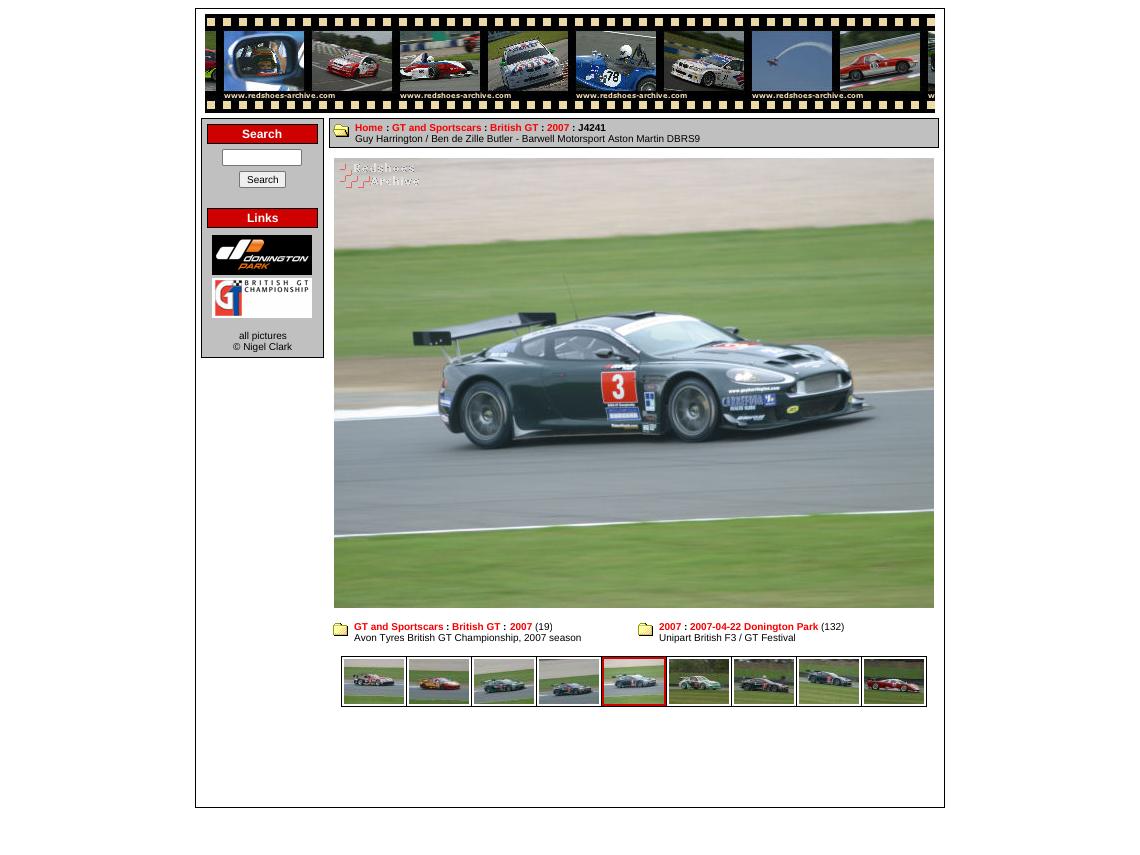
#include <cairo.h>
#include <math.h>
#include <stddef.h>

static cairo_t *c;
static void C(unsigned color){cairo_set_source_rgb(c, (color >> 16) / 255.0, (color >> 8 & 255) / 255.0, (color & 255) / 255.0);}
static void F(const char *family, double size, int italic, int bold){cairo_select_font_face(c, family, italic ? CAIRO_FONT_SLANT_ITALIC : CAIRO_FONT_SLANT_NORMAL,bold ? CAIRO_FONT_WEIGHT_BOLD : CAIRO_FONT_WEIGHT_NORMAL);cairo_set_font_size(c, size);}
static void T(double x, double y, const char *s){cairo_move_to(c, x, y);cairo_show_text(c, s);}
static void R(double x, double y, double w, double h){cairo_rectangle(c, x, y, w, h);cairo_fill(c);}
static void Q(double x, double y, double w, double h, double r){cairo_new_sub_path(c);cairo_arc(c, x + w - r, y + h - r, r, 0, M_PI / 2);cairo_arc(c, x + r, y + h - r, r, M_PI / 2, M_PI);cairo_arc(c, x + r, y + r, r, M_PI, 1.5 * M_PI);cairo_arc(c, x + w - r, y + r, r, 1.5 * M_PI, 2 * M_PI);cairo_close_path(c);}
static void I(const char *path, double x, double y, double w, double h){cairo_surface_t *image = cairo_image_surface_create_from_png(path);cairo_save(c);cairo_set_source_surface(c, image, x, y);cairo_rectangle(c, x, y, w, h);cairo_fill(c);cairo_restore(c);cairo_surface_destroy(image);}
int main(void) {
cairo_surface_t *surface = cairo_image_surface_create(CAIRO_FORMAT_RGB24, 1140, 855);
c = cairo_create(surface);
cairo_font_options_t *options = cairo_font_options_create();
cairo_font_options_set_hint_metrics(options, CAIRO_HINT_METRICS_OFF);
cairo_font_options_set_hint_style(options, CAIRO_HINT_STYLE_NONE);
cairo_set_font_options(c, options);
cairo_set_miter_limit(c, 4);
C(0xffffff);
cairo_paint(c);
C(0x000000);
R(195,8,750,800);
C(0xffffff);
R(196,9,748,798);
I("1.png",205,14,18,99);
I("2.png",223,14,176,99);
I("3.png",399,14,176,99);
I("4.png",575,14,176,99);
I("5.png",751,14,176,99);
I("6.png",927,14,8,99);
C(0x000000);
R(201,118,123,240);
C(0xc0c0c0);
R(202,119,121,238);
C(0x000000);
R(207,124,111,20);
C(0xce0000);
R(208,125,109,18);
F("Liberation Sans",12,0,1);
C(0xffffff);
T(242,138,"Search");
Q(222.5,149.5,79,16,1.5);
cairo_fill_preserve(c);
C(0x767676);
cairo_set_line_width(c,1);
cairo_stroke(c);
C(0xefefef);
Q(239.5,171.5,46,16,1.5);
cairo_fill_preserve(c);
C(0x767676);
cairo_stroke(c);
F("Liberation Sans",10,0,0);
C(0x000000);
T(247,183,"Search");
R(207,208,111,20);
C(0xce0000);
R(208,209,109,18);
F("Liberation Sans",12,0,1);
C(0xffffff);
T(247,222,"Links");
I("7.png",212,235,100,40);
I("8.png",212,278,100,40);
F("Liberation Sans",10,0,0);
C(0x000000);
T(239,339,"all pictures");
T(233,350,"© Nigel Clark");
R(329,118,610,30);
C(0xc0c0c0);
R(330,119,608,28);
I("9.png",333,124,16,13);
F("Liberation Sans",10,0,1);
C(0xf70000);
T(355,131,"Home");
C(0x000000);
T(386,131,":");
C(0xf70000);
T(392,131,"GT and Sportscars");
C(0x000000);
T(484,131,":");
C(0xf70000);
T(490,131,"British GT");
C(0x000000);
T(541,131,":");
C(0xf70000);
T(547,131,"2007");
C(0x000000);
T(572,131,": J4241");
F("Liberation Sans",10,0,0);
T(355,142,"Guy Harrington / Ben de Zille Butler - Barwell Motorsport Aston Martin DBRS9");
I("10.png",334,158,600,450);
I("11.png",333,623,15,13);
F("Liberation Sans",10,0,1);
C(0xf70000);
T(354,630,"GT and Sportscars");
C(0x000000);
T(446,630,":");
C(0xf70000);
T(452,630,"British GT");
C(0x000000);
T(503,630,":");
C(0xf70000);
T(510,630,"2007");
F("Liberation Sans",10,0,0);
C(0x000000);
T(535,630,"(19)");
T(354,641,"Avon Tyres British GT Championship, 2007 season");
I("11.png",638,623,15,13);
F("Liberation Sans",10,0,1);
C(0xf70000);
T(659,630,"2007");
C(0x000000);
T(684,630,":");
C(0xf70000);
T(690,630,"2007-04-22 Donington Park");
F("Liberation Sans",10,0,0);
C(0x000000);
T(821,630,"(132)");
T(659,641,"Unipart British F3 / GT Festival");
R(341,656,586,51);
C(0xffffff);
R(342,657,64,49);
I("12.png",344,659,60,45);
R(407,657,64,49);
I("13.png",409,659,60,45);
R(472,657,64,49);
I("14.png",474,659,60,45);
R(537,657,64,49);
I("15.png",539,659,60,45);
C(0xce0000);
R(602,657,64,49);
I("16.png",604,659,60,45);
C(0xffffff);
R(667,657,64,49);
I("17.png",669,659,60,45);
R(732,657,64,49);
I("18.png",734,659,60,45);
R(797,657,64,49);
I("19.png",799,659,60,45);
R(862,657,64,49);
I("20.png",864,659,60,45);
cairo_surface_write_to_png(surface, "o.png");
cairo_font_options_destroy(options);
cairo_destroy(c);
cairo_surface_destroy(surface);
return 0;
}
